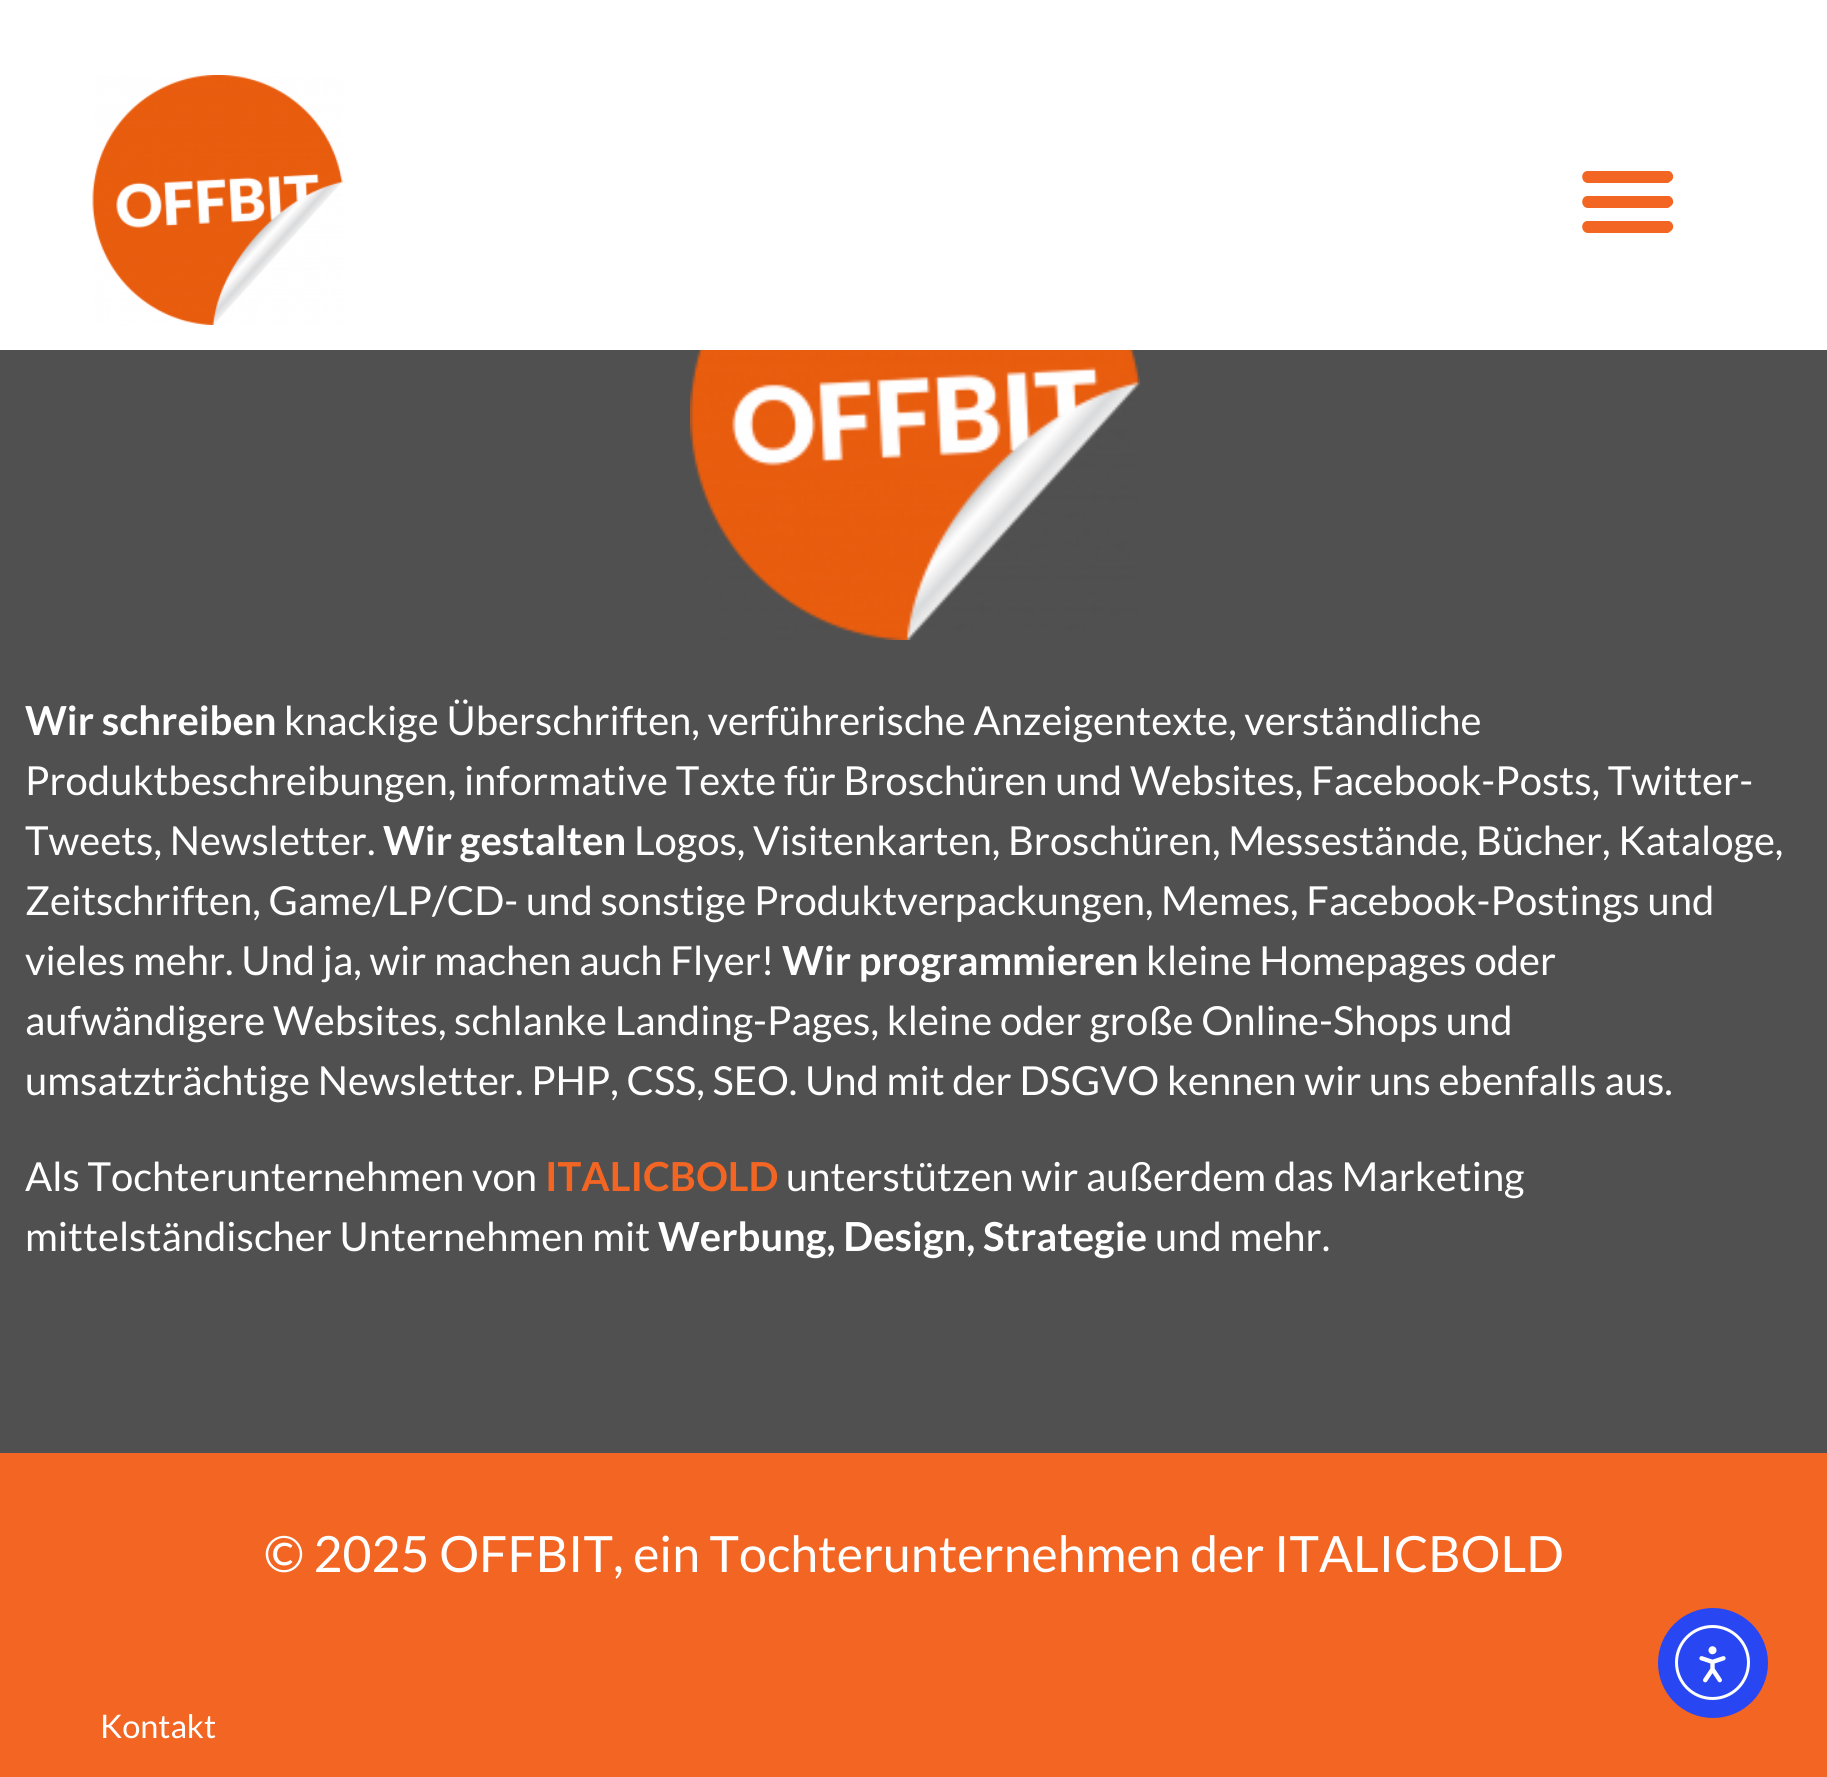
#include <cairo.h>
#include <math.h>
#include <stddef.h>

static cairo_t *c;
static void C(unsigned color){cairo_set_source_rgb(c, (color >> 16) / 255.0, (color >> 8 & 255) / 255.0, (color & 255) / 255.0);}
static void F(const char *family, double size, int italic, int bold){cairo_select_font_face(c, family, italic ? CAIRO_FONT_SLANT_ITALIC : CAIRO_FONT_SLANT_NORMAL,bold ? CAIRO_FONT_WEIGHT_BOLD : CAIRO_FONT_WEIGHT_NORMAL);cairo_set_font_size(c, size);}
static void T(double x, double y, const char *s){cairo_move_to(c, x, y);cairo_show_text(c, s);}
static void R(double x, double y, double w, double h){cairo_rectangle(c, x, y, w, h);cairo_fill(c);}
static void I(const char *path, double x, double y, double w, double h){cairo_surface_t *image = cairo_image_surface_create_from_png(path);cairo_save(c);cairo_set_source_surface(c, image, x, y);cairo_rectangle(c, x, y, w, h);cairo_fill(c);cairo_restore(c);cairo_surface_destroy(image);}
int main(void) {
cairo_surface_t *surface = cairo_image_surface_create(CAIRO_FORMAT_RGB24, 1827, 1777);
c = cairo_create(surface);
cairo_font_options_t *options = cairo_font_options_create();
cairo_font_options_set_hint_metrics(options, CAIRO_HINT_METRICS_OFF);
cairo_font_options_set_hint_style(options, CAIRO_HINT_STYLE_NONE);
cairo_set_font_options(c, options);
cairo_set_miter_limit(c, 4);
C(0x505050);
cairo_paint(c);
C(0xffffff);
R(0,0,1827,350);
I("1.png",92,75,251,250);
C(0xf26522);
cairo_new_path(c);
cairo_move_to(c,1588,183);
cairo_line_to(c,1668,183);
cairo_line_to(c,1671,181);
cairo_curve_to(c,1675,178,1673,172,1669,171);
cairo_line_to(c,1587,171);
cairo_curve_to(c,1580,172,1581,183,1588,183);
cairo_close_path(c);
cairo_move_to(c,1588,208);
cairo_line_to(c,1668,208);
cairo_line_to(c,1671,206);
cairo_curve_to(c,1675,203,1673,197,1669,196);
cairo_line_to(c,1587,196);
cairo_curve_to(c,1580,197,1581,208,1588,208);
cairo_close_path(c);
cairo_move_to(c,1588,233);
cairo_line_to(c,1668,233);
cairo_line_to(c,1671,231);
cairo_curve_to(c,1675,228,1673,222,1669,221);
cairo_line_to(c,1587,221);
cairo_curve_to(c,1580,222,1581,233,1588,233);
cairo_close_path(c);
cairo_fill(c);
I("2.png",690,350,450,290);
F("Lato",40,0,1);
C(0xffffff);
T(25,735,"Wir schreiben");
F("Lato",40,0,0);
T(284,735,"knackige Überschriften, verführerische Anzeigentexte, verständliche");
T(25,795,"Produktbeschreibungen, informative Texte für Broschüren und Websites, Facebook-Posts, Twitter-");
T(25,855,"Tweets, Newsletter.");
F("Lato",40,0,1);
T(383,855,"Wir gestalten");
F("Lato",40,0,0);
T(634,855,"Logos, Visitenkarten, Broschüren, Messestände, Bücher, Kataloge,");
T(25,915,"Zeitschriften, Game/LP/CD- und sonstige Produktverpackungen, Memes, Facebook-Postings und");
T(25,975,"vieles mehr. Und ja, wir machen auch Flyer!");
F("Lato",40,0,1);
T(782,975,"Wir programmieren");
F("Lato",40,0,0);
T(1146,975,"kleine Homepages oder");
T(25,1035,"aufwändigere Websites, schlanke Landing-Pages, kleine oder große Online-Shops und");
T(25,1095,"umsatzträchtige Newsletter. PHP, CSS, SEO. Und mit der DSGVO kennen wir uns ebenfalls aus.");
T(25,1191,"Als Tochterunternehmen von");
F("Lato",40,0,1);
C(0xf26522);
T(545,1191,"ITALICBOLD");
F("Lato",40,0,0);
C(0xffffff);
T(786,1191,"unterstützen wir außerdem das Marketing");
T(25,1251,"mittelständischer Unternehmen mit");
F("Lato",40,0,1);
T(658,1251,"Werbung, Design, Strategie");
F("Lato",40,0,0);
T(1155,1251,"und mehr.");
C(0xf26522);
R(0,1453,1827,324);
F("Lato",50,0,0);
C(0xffffff);
T(264,1572,"© 2025 OFFBIT, ein Tochterunternehmen der ITALICBOLD");
F("Lato",32.5,0,0);
T(100,1738,"Kontakt");
C(0x2847f3);
cairo_new_path(c);
cairo_arc(c,1713,1663,55,0,2 * M_PI);
cairo_fill(c);
cairo_arc(c,1712.5,1662.5,36,0,2 * M_PI);
C(0xffffff);
cairo_set_line_width(c,3);
cairo_stroke(c);
I("3.png",1699,1646,27,37);
cairo_surface_write_to_png(surface, "o.png");
cairo_font_options_destroy(options);
cairo_destroy(c);
cairo_surface_destroy(surface);
return 0;
}
